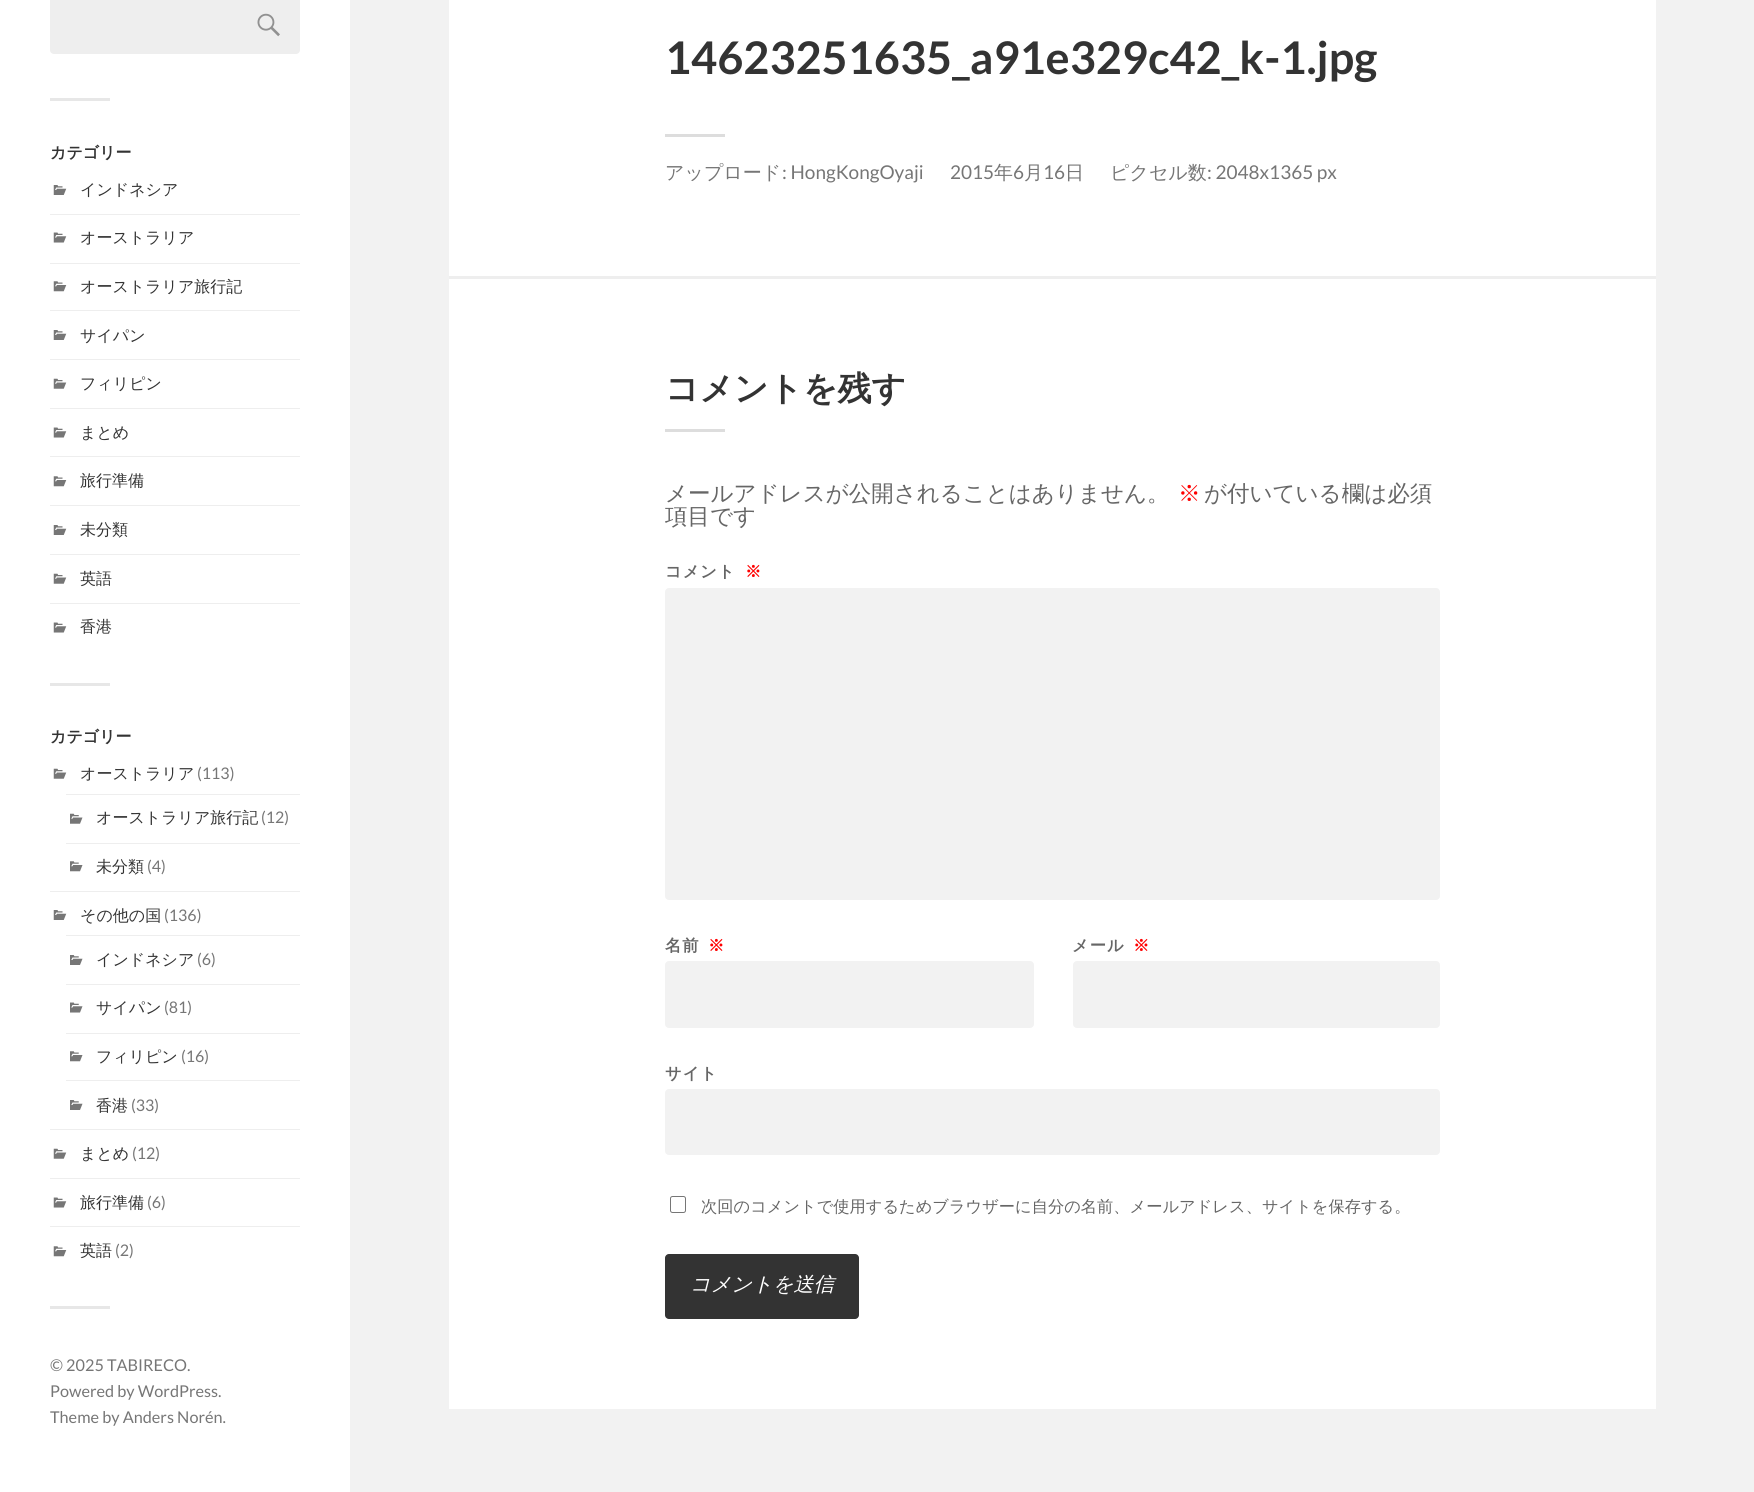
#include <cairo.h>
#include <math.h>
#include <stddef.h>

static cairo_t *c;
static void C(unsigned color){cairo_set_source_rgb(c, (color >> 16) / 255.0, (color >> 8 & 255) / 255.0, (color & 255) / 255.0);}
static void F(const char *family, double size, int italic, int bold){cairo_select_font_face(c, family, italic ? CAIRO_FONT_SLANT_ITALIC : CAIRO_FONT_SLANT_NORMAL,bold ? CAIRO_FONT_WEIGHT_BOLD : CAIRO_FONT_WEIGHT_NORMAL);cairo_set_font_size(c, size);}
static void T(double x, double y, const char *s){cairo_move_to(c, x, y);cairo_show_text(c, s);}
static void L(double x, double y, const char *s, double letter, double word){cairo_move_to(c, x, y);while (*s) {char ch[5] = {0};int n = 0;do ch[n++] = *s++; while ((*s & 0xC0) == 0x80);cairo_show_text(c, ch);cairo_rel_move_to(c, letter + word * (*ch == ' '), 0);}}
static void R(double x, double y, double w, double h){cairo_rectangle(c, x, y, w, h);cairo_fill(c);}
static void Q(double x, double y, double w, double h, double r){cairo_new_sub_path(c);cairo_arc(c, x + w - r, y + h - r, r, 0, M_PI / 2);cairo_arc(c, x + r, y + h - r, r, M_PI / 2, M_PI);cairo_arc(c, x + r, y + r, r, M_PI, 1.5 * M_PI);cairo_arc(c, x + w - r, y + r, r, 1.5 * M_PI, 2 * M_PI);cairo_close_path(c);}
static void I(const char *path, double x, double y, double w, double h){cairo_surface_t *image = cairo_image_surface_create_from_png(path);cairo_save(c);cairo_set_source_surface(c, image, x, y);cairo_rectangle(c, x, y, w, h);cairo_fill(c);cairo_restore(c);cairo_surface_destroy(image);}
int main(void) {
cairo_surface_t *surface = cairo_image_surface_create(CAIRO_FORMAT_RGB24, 1754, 1492);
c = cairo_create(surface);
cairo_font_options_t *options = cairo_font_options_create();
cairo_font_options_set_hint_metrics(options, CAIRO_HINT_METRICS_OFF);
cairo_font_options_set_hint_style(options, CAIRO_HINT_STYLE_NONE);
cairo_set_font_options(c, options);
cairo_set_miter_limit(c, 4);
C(0xf2f2f2);
cairo_paint(c);
C(0xffffff);
R(0,0,350,1492);
C(0xeeeeee);
Q(50,-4,250,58,4);
cairo_fill(c);
I("1.png",257,13,23,24);
C(0xe7e7e7);
R(50,98,60,3);
F("WenQuanYi Zen Hei",16,0,1);
C(0x333333);
T(50,158,"カテゴリー");
C(0xeeeeee);
R(50,214,250,1);
I("2.png",53,185,14,10);
F("WenQuanYi Zen Hei Medium",16,0,0);
C(0x333333);
T(80,195,"インドネシア");
C(0xeeeeee);
R(50,263,250,1);
I("3.png",53,232,14,11);
C(0x333333);
T(80,243,"オーストラリア");
C(0xeeeeee);
R(50,310,250,1);
I("4.png",53,281,14,11);
C(0x333333);
T(80,292,"オーストラリア旅行記");
C(0xeeeeee);
R(50,359,250,1);
I("2.png",53,330,14,10);
C(0x333333);
T(80,341,"サイパン");
C(0xeeeeee);
R(50,408,250,1);
I("5.png",53,378,14,11);
C(0x333333);
T(80,389,"フィリピン");
C(0xeeeeee);
R(50,456,250,1);
I("3.png",53,427,14,11);
C(0x333333);
T(80,438,"まとめ");
C(0xeeeeee);
R(50,505,250,1);
I("4.png",53,476,14,11);
C(0x333333);
T(80,486,"旅行準備");
C(0xeeeeee);
R(50,554,250,1);
I("2.png",53,525,14,10);
C(0x333333);
T(80,535,"未分類");
C(0xeeeeee);
R(50,603,250,1);
I("5.png",53,573,14,11);
C(0x333333);
T(80,584,"英語");
I("3.png",53,622,14,11);
T(80,632,"香港");
C(0xe7e7e7);
R(50,683,60,3);
F("WenQuanYi Zen Hei",16,0,1);
C(0x333333);
T(50,742,"カテゴリー");
C(0xeeeeee);
R(50,891,250,1);
I("5.png",53,768,14,11);
F("WenQuanYi Zen Hei Medium",16,0,0);
C(0x333333);
T(80,779,"オーストラリア");
F("Lato",16,0,0);
C(0x767676);
T(197,779,"(113)");
C(0xeeeeee);
R(66,794,234,1);
R(66,843,234,1);
I("6.png",70,813,13,11);
F("WenQuanYi Zen Hei Medium",16,0,0);
C(0x333333);
T(96,823,"オーストラリア旅行記");
F("Lato",16,0,0);
C(0x767676);
T(261,823,"(12)");
I("7.png",70,861,13,11);
F("WenQuanYi Zen Hei Medium",16,0,0);
C(0x333333);
T(96,872,"未分類");
F("Lato",16,0,0);
C(0x767676);
T(147,872,"(4)");
C(0xeeeeee);
R(50,1129,250,1);
I("2.png",53,910,14,10);
F("WenQuanYi Zen Hei Medium",16,0,0);
C(0x333333);
T(80,921,"その他の国");
F("Lato",16,0,0);
C(0x767676);
T(164,921,"(136)");
C(0xeeeeee);
R(66,935,234,1);
R(66,984,234,1);
I("8.png",70,955,13,10);
F("WenQuanYi Zen Hei Medium",16,0,0);
C(0x333333);
T(96,965,"インドネシア");
F("Lato",16,0,0);
C(0x767676);
T(197,965,"(6)");
C(0xeeeeee);
R(66,1033,234,1);
I("9.png",70,1002,13,11);
F("WenQuanYi Zen Hei Medium",16,0,0);
C(0x333333);
T(96,1013,"サイパン");
F("Lato",16,0,0);
C(0x767676);
T(164,1013,"(81)");
C(0xeeeeee);
R(66,1080,234,1);
I("7.png",70,1051,13,11);
F("WenQuanYi Zen Hei Medium",16,0,0);
C(0x333333);
T(96,1062,"フィリピン");
F("Lato",16,0,0);
C(0x767676);
T(181,1062,"(16)");
I("8.png",70,1100,13,10);
F("WenQuanYi Zen Hei Medium",16,0,0);
C(0x333333);
T(96,1111,"香港");
F("Lato",16,0,0);
C(0x767676);
T(131,1111,"(33)");
C(0xeeeeee);
R(50,1178,250,1);
I("5.png",53,1148,14,11);
F("WenQuanYi Zen Hei Medium",16,0,0);
C(0x333333);
T(80,1159,"まとめ");
F("Lato",16,0,0);
C(0x767676);
T(132,1159,"(12)");
C(0xeeeeee);
R(50,1226,250,1);
I("3.png",53,1197,14,11);
F("WenQuanYi Zen Hei Medium",16,0,0);
C(0x333333);
T(80,1208,"旅行準備");
F("Lato",16,0,0);
C(0x767676);
T(147,1208,"(6)");
I("4.png",53,1246,14,11);
F("WenQuanYi Zen Hei Medium",16,0,0);
C(0x333333);
T(80,1256,"英語");
F("Lato",16,0,0);
C(0x767676);
T(115,1256,"(2)");
C(0xe7e7e7);
R(50,1306,60,3);
F("Lato",16.25,0,0);
C(0x767676);
T(50,1371,"© 2025 TABIRECO.");
T(50,1397,"Powered by WordPress.");
T(50,1423,"Theme by Anders Norén.");
C(0xffffff);
R(449,0,1207,1409);
F("Lato",45,0,1);
C(0x333333);
T(665,74,"14623251635_a91e329c42_k-1.jpg");
C(0xdddddd);
R(665,134,60,3);
F("WenQuanYi Zen Hei Medium",19,0,0);
C(0x767676);
T(665,179,"アップロード");
F("Lato",19,0,0);
T(782,179,": HongKongOyaji");
T(950,179,"2015");
F("WenQuanYi Zen Hei Medium",19,0,0);
T(994,179,"年");
F("Lato",19,0,0);
T(1013,179,"6");
F("WenQuanYi Zen Hei Medium",19,0,0);
T(1024,179,"月");
F("Lato",19,0,0);
T(1043,179,"16");
F("WenQuanYi Zen Hei Medium",19,0,0);
T(1065,179,"日");
T(1110,179,"ピクセル数");
F("Lato",19,0,0);
T(1207,179,": 2048x1365 px");
C(0xeeeeee);
R(449,276,1207,3);
F("WenQuanYi Zen Hei",33.75,0,1);
C(0x333333);
T(665,400,"コメントを残す");
C(0xdddddd);
R(665,429,60,3);
F("WenQuanYi Zen Hei Medium",22.5,0,0);
C(0x666666);
T(665,501,"メールアドレスが公開されることはありません。");
C(0xff0000);
T(1178,501,"※");
C(0x666666);
T(1204,501,"が付いている欄は必須");
T(665,524,"項目です");
F("WenQuanYi Zen Hei",16.25,0,1);
L(665,577,"コメント",1,0);
C(0xff0000);
L(745,577,"※",1,0);
C(0xf2f2f2);
Q(665,588,775,312,4);
cairo_fill(c);
C(0x666666);
L(665,951,"名前",1,0);
C(0xff0000);
L(708,951,"※",1,0);
C(0xf2f2f2);
Q(665,961,369,67,4);
cairo_fill(c);
C(0x666666);
L(1072,951,"メール",1,0);
C(0xff0000);
L(1133,951,"※",1,0);
C(0xf2f2f2);
Q(1073,961,367,67,4);
cairo_fill(c);
C(0x666666);
L(665,1079,"サイト",1,0);
C(0xf2f2f2);
Q(665,1089,775,66,4);
cairo_fill(c);
Q(670.5,1196.5,15,16,2);
C(0x767676);
cairo_set_line_width(c,1);
cairo_stroke(c);
F("WenQuanYi Zen Hei Medium",16.25,0,0);
C(0x666666);
T(701,1212,"次回のコメントで使用するためブラウザーに自分の名前、メールアドレス、サイトを保存する。");
C(0x333333);
Q(665,1254,194,65,4);
cairo_fill(c);
F("WenQuanYi Zen Hei Medium",20.25,1,0);
C(0xffffff);
T(690,1291,"コメントを送信");
cairo_surface_write_to_png(surface, "o.png");
cairo_font_options_destroy(options);
cairo_destroy(c);
cairo_surface_destroy(surface);
return 0;
}
